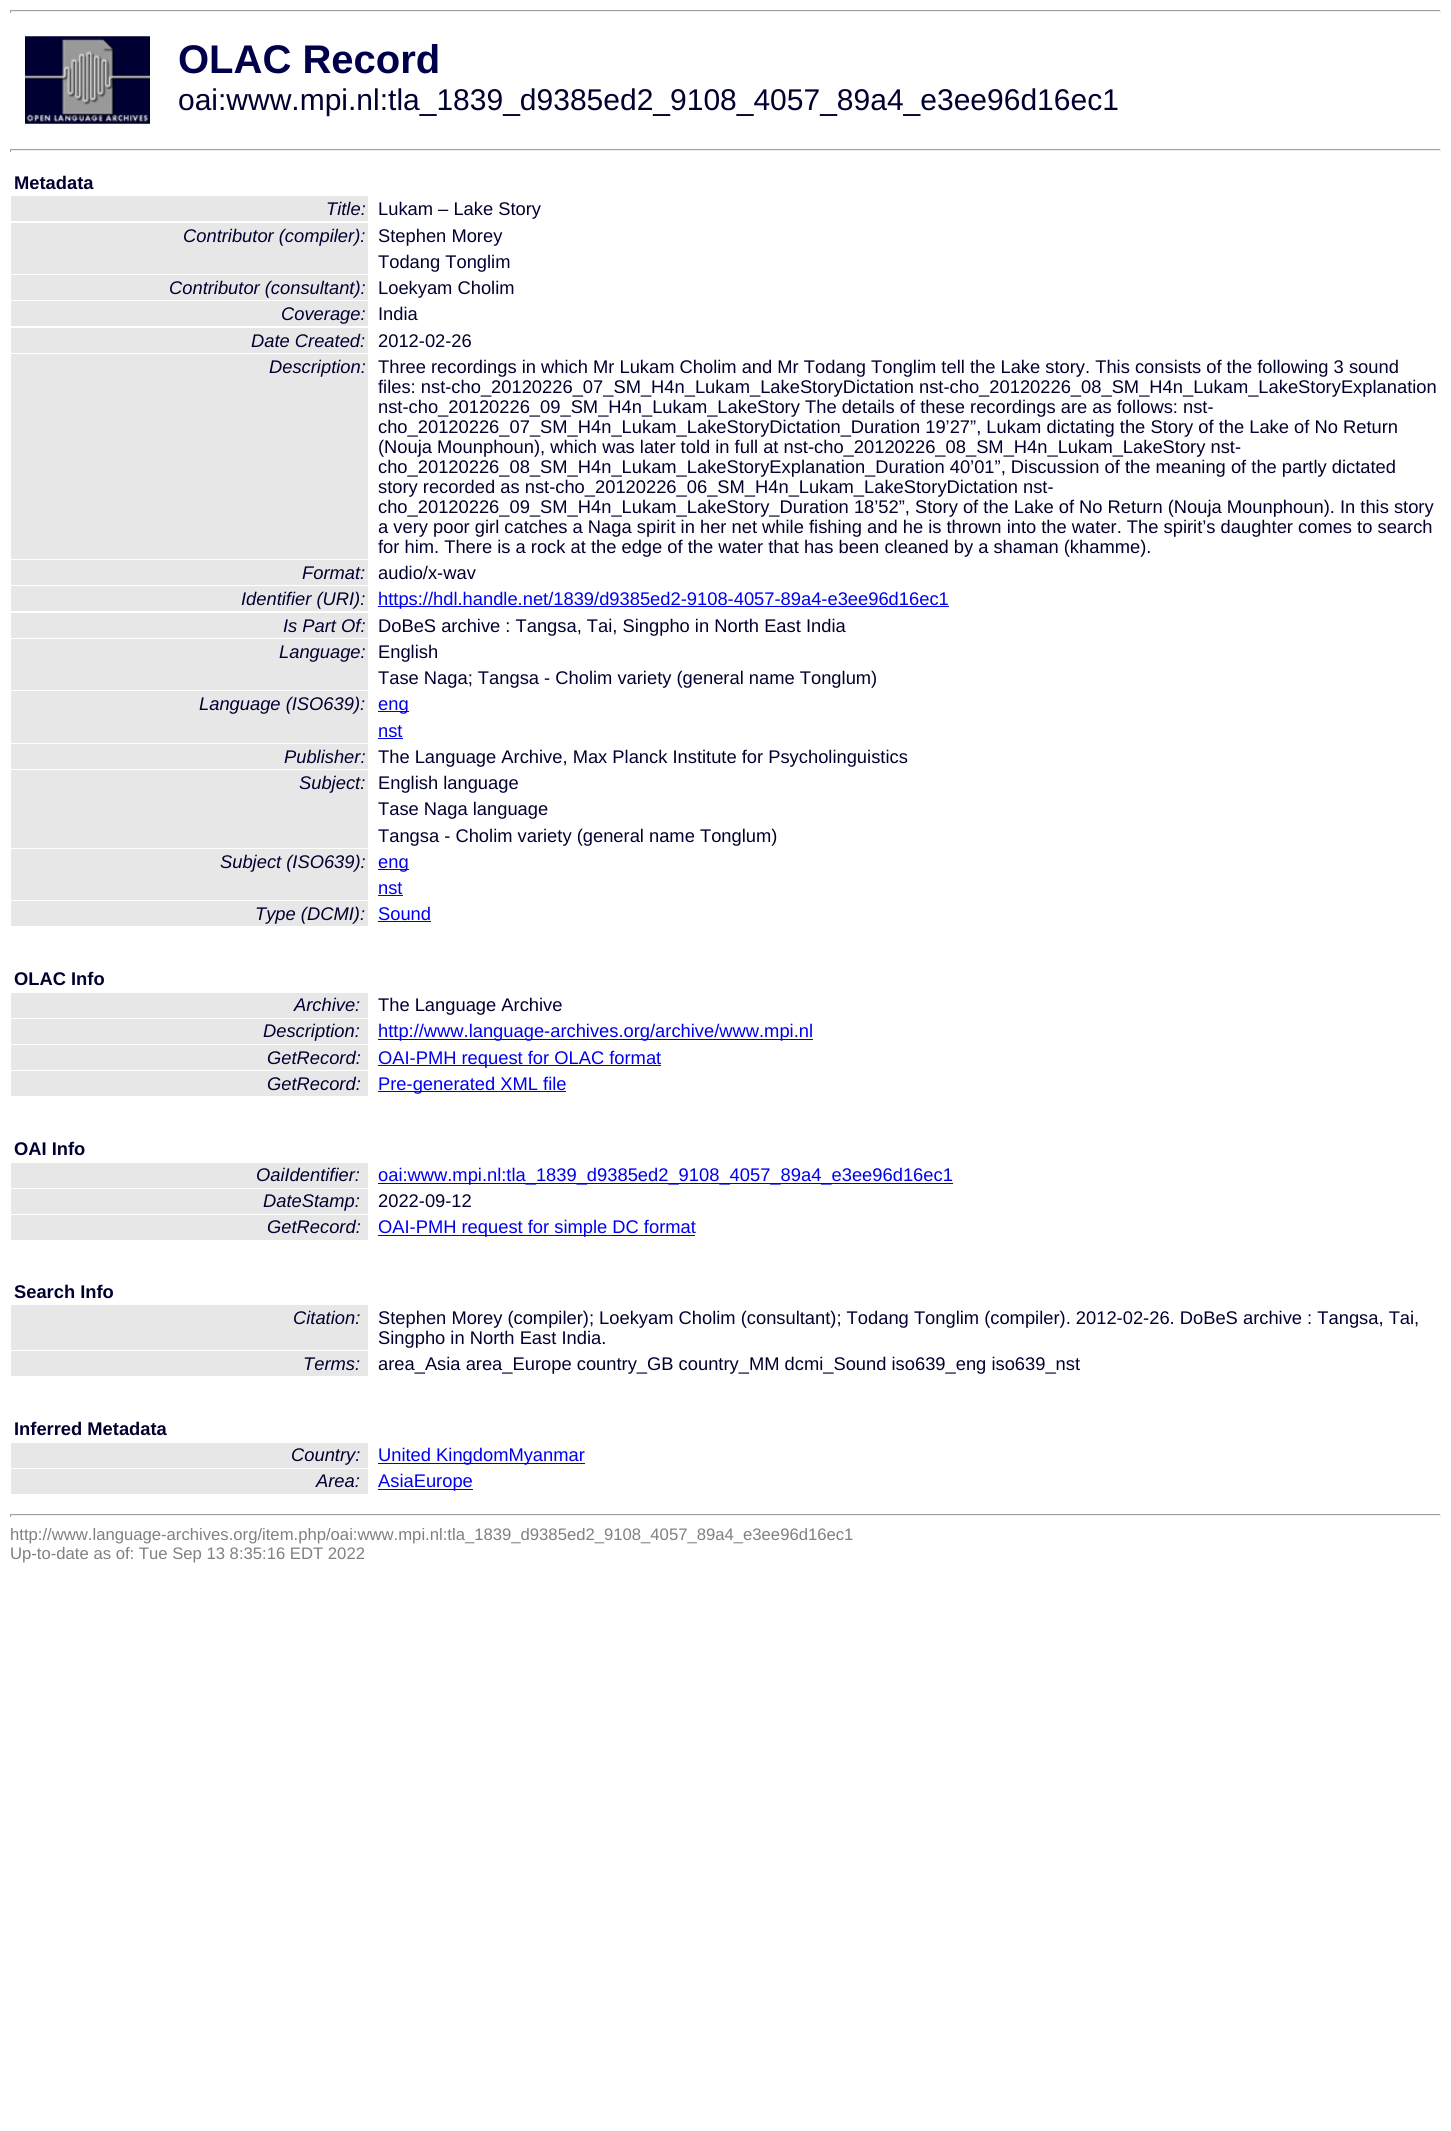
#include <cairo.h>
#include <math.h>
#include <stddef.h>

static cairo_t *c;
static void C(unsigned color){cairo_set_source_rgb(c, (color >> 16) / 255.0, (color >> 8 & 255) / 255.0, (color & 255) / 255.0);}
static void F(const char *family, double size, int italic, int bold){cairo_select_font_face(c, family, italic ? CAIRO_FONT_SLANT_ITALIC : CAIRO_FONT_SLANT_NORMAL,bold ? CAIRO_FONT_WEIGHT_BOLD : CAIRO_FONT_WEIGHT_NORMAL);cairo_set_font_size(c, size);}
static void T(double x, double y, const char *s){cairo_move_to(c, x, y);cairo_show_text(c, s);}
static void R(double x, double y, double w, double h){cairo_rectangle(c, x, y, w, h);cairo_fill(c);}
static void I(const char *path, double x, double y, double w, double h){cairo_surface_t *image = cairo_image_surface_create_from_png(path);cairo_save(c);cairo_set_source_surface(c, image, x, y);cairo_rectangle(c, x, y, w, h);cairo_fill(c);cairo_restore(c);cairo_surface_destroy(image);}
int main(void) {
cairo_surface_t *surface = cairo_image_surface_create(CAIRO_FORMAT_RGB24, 1451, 2131);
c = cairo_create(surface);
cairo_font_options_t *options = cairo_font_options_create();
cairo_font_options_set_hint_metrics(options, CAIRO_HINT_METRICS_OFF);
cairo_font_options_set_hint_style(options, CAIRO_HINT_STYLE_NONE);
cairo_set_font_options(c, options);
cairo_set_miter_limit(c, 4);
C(0xffffff);
cairo_paint(c);
C(0x9f9f9f);
R(10,10,1431,1);
C(0xeeeeee);
R(1440,10,1,3);
R(10,11,1431,1);
C(0x9f9f9f);
R(10,10,1,3);
I("1.png",25,36,125,88);
F("Liberation Sans",40,0,1);
C(0x00004a);
T(178,73,"OLAC Record");
F("Liberation Sans",30,0,0);
C(0x000030);
T(178,110,"oai:www.mpi.nl:tla_1839_d9385ed2_9108_4057_89a4_e3ee96d16ec1");
C(0x9f9f9f);
R(10,149,1431,1);
C(0xeeeeee);
R(1440,149,1,3);
R(10,150,1431,1);
C(0x9f9f9f);
R(10,149,1,3);
F("Liberation Sans",18.33,0,1);
C(0x000030);
T(14,189,"Metadata");
C(0xe7e7e7);
R(11,196,357,25);
F("Liberation Sans",18.33,1,0);
C(0x000030);
T(326,215,"Title:");
F("Liberation Sans",18.33,0,0);
T(378,215,"Lukam – Lake Story");
C(0xe7e7e7);
R(11,223,357,51);
F("Liberation Sans",18.33,1,0);
C(0x000030);
T(183,242,"Contributor (compiler):");
F("Liberation Sans",18.33,0,0);
T(378,242,"Stephen Morey");
T(378,268,"Todang Tonglim");
C(0xe7e7e7);
R(11,275,357,25);
F("Liberation Sans",18.33,1,0);
C(0x000030);
T(169,294,"Contributor (consultant):");
F("Liberation Sans",18.33,0,0);
T(378,294,"Loekyam Cholim");
C(0xe7e7e7);
R(11,301,357,25);
F("Liberation Sans",18.33,1,0);
C(0x000030);
T(281,320,"Coverage:");
F("Liberation Sans",18.33,0,0);
T(378,320,"India");
C(0xe7e7e7);
R(11,328,357,25);
F("Liberation Sans",18.33,1,0);
C(0x000030);
T(251,347,"Date Created:");
F("Liberation Sans",18.33,0,0);
T(378,347,"2012-02-26");
C(0xe7e7e7);
R(11,354,357,205);
F("Liberation Sans",18.33,1,0);
C(0x000030);
T(269,373,"Description:");
F("Liberation Sans",18.33,0,0);
T(378,373,"Three recordings in which Mr Lukam Cholim and Mr Todang Tonglim tell the Lake story. This consists of the following 3 sound");
T(378,393,"files: nst-cho_20120226_07_SM_H4n_Lukam_LakeStoryDictation");
T(919,393,"nst-cho_20120226_08_SM_H4n_Lukam_LakeStoryExplanation");
T(378,413,"nst-cho_20120226_09_SM_H4n_Lukam_LakeStory");
T(805,413,"The details of these recordings are as follows: nst-");
T(378,433,"cho_20120226_07_SM_H4n_Lukam_LakeStoryDictation_Duration 19’27”, Lukam dictating the Story of the Lake of No Return");
T(378,453,"(Nouja Mounphoun), which was later told in full at nst-cho_20120226_08_SM_H4n_Lukam_LakeStory nst-");
T(378,473,"cho_20120226_08_SM_H4n_Lukam_LakeStoryExplanation_Duration 40’01”, Discussion of the meaning of the partly dictated");
T(378,493,"story recorded as nst-cho_20120226_06_SM_H4n_Lukam_LakeStoryDictation nst-");
T(378,513,"cho_20120226_09_SM_H4n_Lukam_LakeStory_Duration 18’52”, Story of the Lake of No Return (Nouja Mounphoun). In this story");
T(378,533,"a very poor girl catches a Naga spirit in her net while fishing and he is thrown into the water. The spirit’s daughter comes to search");
T(378,553,"for him. There is a rock at the edge of the water that has been cleaned by a shaman (khamme).");
C(0xe7e7e7);
R(11,560,357,25);
F("Liberation Sans",18.33,1,0);
C(0x000030);
T(302,579,"Format:");
F("Liberation Sans",18.33,0,0);
T(378,579,"audio/x-wav");
C(0xe7e7e7);
R(11,586,357,25);
F("Liberation Sans",18.33,1,0);
C(0x000030);
T(241,605,"Identifier (URI):");
C(0x0000ee);
R(378,606,571,1);
F("Liberation Sans",18.33,0,0);
T(378,605,"https://hdl.handle.net/1839/d9385ed2-9108-4057-89a4-e3ee96d16ec1");
C(0xe7e7e7);
R(11,613,357,25);
F("Liberation Sans",18.33,1,0);
C(0x000030);
T(283,632,"Is Part Of:");
F("Liberation Sans",18.33,0,0);
T(378,632,"DoBeS archive : Tangsa, Tai, Singpho in North East India");
C(0xe7e7e7);
R(11,639,357,51);
F("Liberation Sans",18.33,1,0);
C(0x000030);
T(279,658,"Language:");
F("Liberation Sans",18.33,0,0);
T(378,658,"English");
T(378,684,"Tase Naga; Tangsa - Cholim variety (general name Tonglum)");
C(0xe7e7e7);
R(11,691,357,52);
F("Liberation Sans",18.33,1,0);
C(0x000030);
T(199,710,"Language (ISO639):");
C(0x0000ee);
R(378,711,31,1);
F("Liberation Sans",18.33,0,0);
T(378,710,"eng");
T(378,737,"nst");
R(378,738,25,1);
C(0xe7e7e7);
R(11,744,357,25);
F("Liberation Sans",18.33,1,0);
C(0x000030);
T(284,763,"Publisher:");
F("Liberation Sans",18.33,0,0);
T(378,763,"The Language Archive, Max Planck Institute for Psycholinguistics");
C(0xe7e7e7);
R(11,770,357,78);
F("Liberation Sans",18.33,1,0);
C(0x000030);
T(299,789,"Subject:");
F("Liberation Sans",18.33,0,0);
T(378,789,"English language");
T(378,815,"Tase Naga language");
T(378,842,"Tangsa - Cholim variety (general name Tonglum)");
C(0xe7e7e7);
R(11,849,357,51);
F("Liberation Sans",18.33,1,0);
C(0x000030);
T(220,868,"Subject (ISO639):");
C(0x0000ee);
R(378,869,31,1);
F("Liberation Sans",18.33,0,0);
T(378,868,"eng");
T(378,894,"nst");
R(378,895,25,1);
C(0xe7e7e7);
R(11,901,357,25);
F("Liberation Sans",18.33,1,0);
C(0x000030);
T(255,920,"Type (DCMI):");
F("Liberation Sans",18.33,0,0);
C(0x0000ee);
T(378,920,"Sound");
R(378,921,53,1);
F("Liberation Sans",18.33,0,1);
C(0x000030);
T(14,985,"OLAC Info");
C(0xe7e7e7);
R(11,993,357,25);
F("Liberation Sans",18.33,1,0);
C(0x000030);
T(294,1011,"Archive:");
F("Liberation Sans",18.33,0,0);
T(378,1011,"The Language Archive");
C(0xe7e7e7);
R(11,1019,357,25);
F("Liberation Sans",18.33,1,0);
C(0x000030);
T(263,1037,"Description:");
C(0x0000ee);
R(378,1039,435,1);
F("Liberation Sans",18.33,0,0);
T(378,1037,"http://www.language-archives.org/archive/www.mpi.nl");
C(0xe7e7e7);
R(11,1045,357,25);
F("Liberation Sans",18.33,1,0);
C(0x000030);
T(267,1064,"GetRecord:");
C(0x0000ee);
R(378,1065,283,1);
F("Liberation Sans",18.33,0,0);
T(378,1064,"OAI-PMH request for OLAC format");
C(0xe7e7e7);
R(11,1071,357,25);
F("Liberation Sans",18.33,1,0);
C(0x000030);
T(267,1090,"GetRecord:");
C(0x0000ee);
R(378,1091,188,1);
F("Liberation Sans",18.33,0,0);
T(378,1090,"Pre-generated XML file");
F("Liberation Sans",18.33,0,1);
C(0x000030);
T(14,1155,"OAI Info");
C(0xe7e7e7);
R(11,1163,357,25);
F("Liberation Sans",18.33,1,0);
C(0x000030);
T(256,1181,"OaiIdentifier:");
C(0x0000ee);
R(378,1183,575,1);
F("Liberation Sans",18.33,0,0);
T(378,1181,"oai:www.mpi.nl:tla_1839_d9385ed2_9108_4057_89a4_e3ee96d16ec1");
C(0xe7e7e7);
R(11,1189,357,25);
F("Liberation Sans",18.33,1,0);
C(0x000030);
T(263,1207,"DateStamp:");
F("Liberation Sans",18.33,0,0);
T(378,1207,"2022-09-12");
C(0xe7e7e7);
R(11,1215,357,25);
F("Liberation Sans",18.33,1,0);
C(0x000030);
T(267,1233,"GetRecord:");
C(0x0000ee);
R(378,1235,317,1);
F("Liberation Sans",18.33,0,0);
T(378,1233,"OAI-PMH request for simple DC format");
F("Liberation Sans",18.33,0,1);
C(0x000030);
T(14,1298,"Search Info");
C(0xe7e7e7);
R(11,1305,357,45);
F("Liberation Sans",18.33,1,0);
C(0x000030);
T(293,1324,"Citation:");
F("Liberation Sans",18.33,0,0);
T(378,1324,"Stephen Morey (compiler); Loekyam Cholim (consultant); Todang Tonglim (compiler). 2012-02-26. DoBeS archive : Tangsa, Tai,");
T(378,1344,"Singpho in North East India.");
C(0xe7e7e7);
R(11,1351,357,25);
F("Liberation Sans",18.33,1,0);
C(0x000030);
T(303,1370,"Terms:");
F("Liberation Sans",18.33,0,0);
T(378,1370,"area_Asia area_Europe country_GB country_MM dcmi_Sound iso639_eng iso639_nst");
F("Liberation Sans",18.33,0,1);
T(14,1435,"Inferred Metadata");
C(0xe7e7e7);
R(11,1443,357,25);
F("Liberation Sans",18.33,1,0);
C(0x000030);
T(291,1461,"Country:");
C(0x0000ee);
R(378,1463,207,1);
F("Liberation Sans",18.33,0,0);
T(378,1461,"United KingdomMyanmar");
C(0xe7e7e7);
R(11,1469,357,25);
F("Liberation Sans",18.33,1,0);
C(0x000030);
T(316,1487,"Area:");
C(0x0000ee);
R(378,1489,95,1);
F("Liberation Sans",18.33,0,0);
T(378,1487,"AsiaEurope");
C(0x9f9f9f);
R(10,1514,1431,1);
C(0xeeeeee);
R(1440,1514,1,3);
R(10,1515,1431,1);
C(0x9f9f9f);
R(10,1514,1,3);
F("Liberation Sans",16.67,0,0);
C(0x808080);
T(10,1540,"http://www.language-archives.org/item.php/oai:www.mpi.nl:tla_1839_d9385ed2_9108_4057_89a4_e3ee96d16ec1");
T(10,1559,"Up-to-date as of: Tue Sep 13 8:35:16 EDT 2022");
cairo_surface_write_to_png(surface, "o.png");
cairo_font_options_destroy(options);
cairo_destroy(c);
cairo_surface_destroy(surface);
return 0;
}
